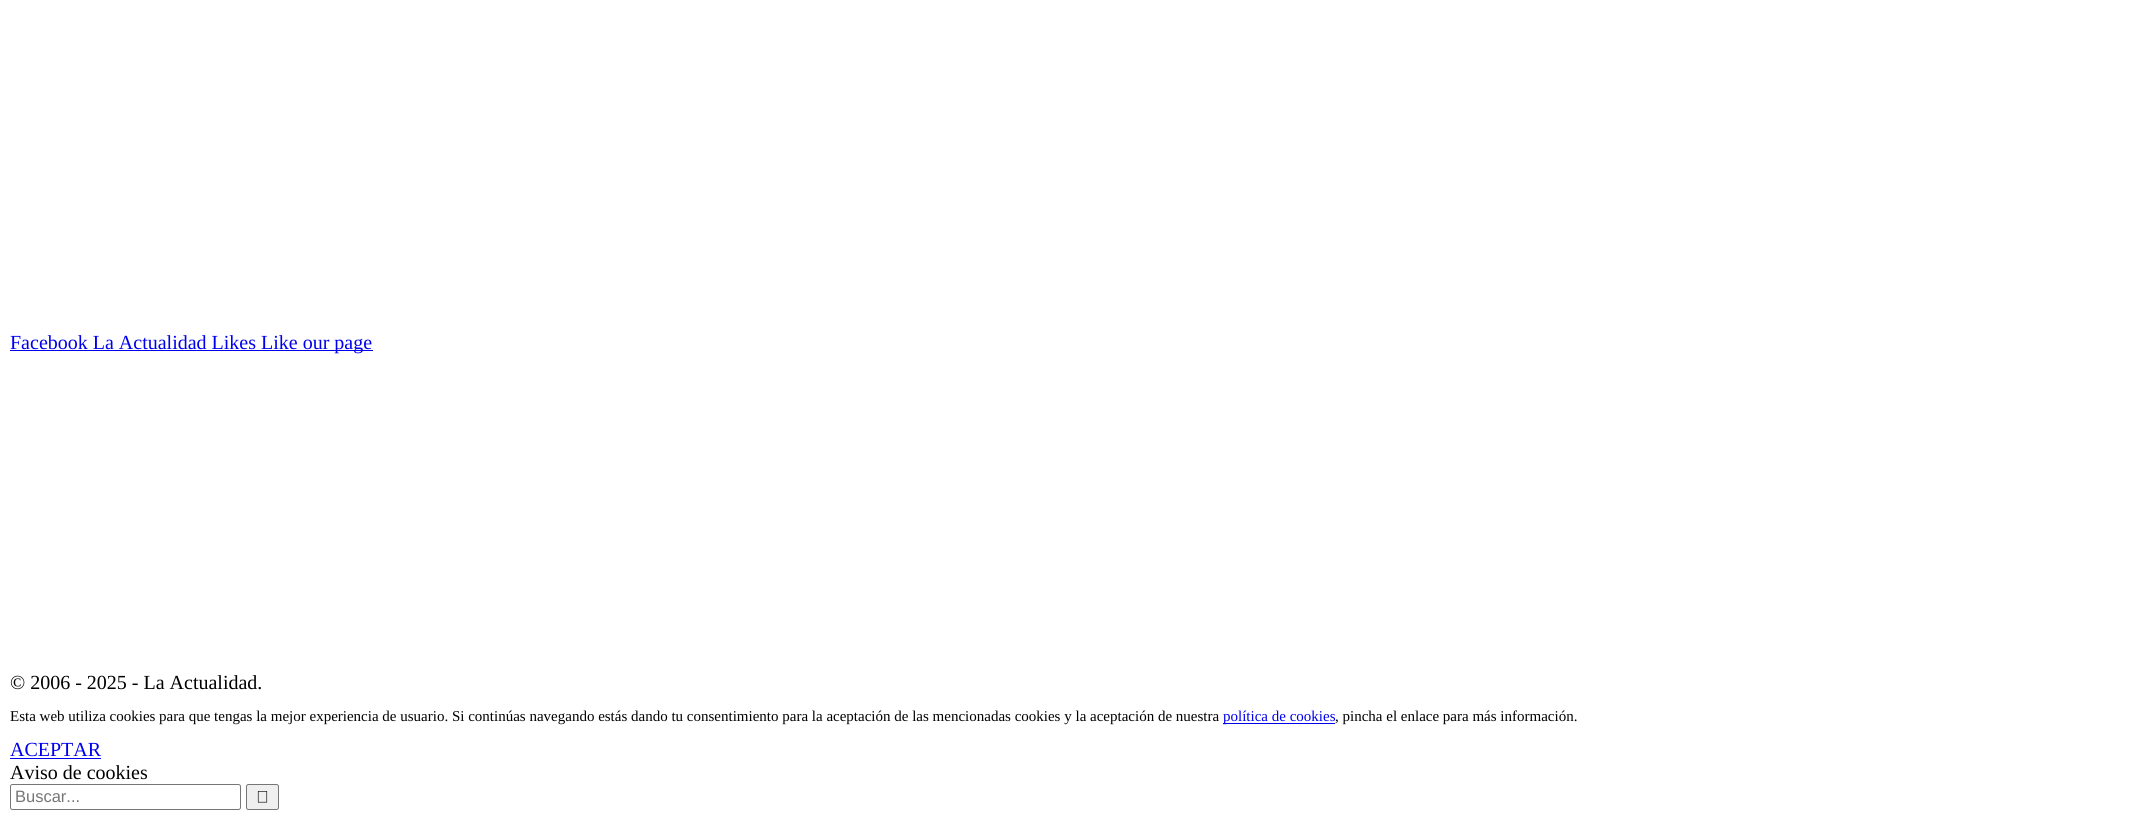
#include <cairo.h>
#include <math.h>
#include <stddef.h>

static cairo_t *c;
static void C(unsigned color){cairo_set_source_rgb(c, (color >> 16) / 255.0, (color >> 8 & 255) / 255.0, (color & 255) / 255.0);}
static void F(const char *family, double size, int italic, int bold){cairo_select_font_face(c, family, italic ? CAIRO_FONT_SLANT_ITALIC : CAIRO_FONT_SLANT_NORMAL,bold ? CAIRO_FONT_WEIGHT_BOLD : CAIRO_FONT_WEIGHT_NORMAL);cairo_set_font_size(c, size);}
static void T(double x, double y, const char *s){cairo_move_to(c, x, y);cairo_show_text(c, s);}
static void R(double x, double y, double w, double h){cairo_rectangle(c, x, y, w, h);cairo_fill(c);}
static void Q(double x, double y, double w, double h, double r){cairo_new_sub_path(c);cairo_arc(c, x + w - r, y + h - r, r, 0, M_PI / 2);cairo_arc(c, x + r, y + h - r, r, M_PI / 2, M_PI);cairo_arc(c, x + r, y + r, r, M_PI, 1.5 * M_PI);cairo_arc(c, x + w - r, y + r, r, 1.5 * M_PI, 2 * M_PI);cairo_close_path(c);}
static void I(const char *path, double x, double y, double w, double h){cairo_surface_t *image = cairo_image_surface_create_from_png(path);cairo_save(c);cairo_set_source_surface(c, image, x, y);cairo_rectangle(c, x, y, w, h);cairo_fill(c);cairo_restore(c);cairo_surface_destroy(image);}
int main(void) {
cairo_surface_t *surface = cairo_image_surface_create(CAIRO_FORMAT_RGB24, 2135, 819);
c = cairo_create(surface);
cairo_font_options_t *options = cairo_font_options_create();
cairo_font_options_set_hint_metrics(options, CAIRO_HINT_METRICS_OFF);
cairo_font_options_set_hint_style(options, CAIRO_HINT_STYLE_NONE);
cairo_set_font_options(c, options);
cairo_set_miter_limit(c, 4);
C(0xffffff);
cairo_paint(c);
C(0x0000ee);
R(10,350,363,1);
F("Liberation Serif",20,0,0);
T(10,349,"Facebook La Actualidad Likes Like our page");
C(0x000000);
T(10,689,"© 2006 - 2025 - La Actualidad.");
F("Liberation Serif",15,0,0);
T(10,721,"Esta web utiliza cookies para que tengas la mejor experiencia de usuario. Si continúas navegando estás dando tu consentimiento para la aceptación de las mencionadas cookies y la aceptación de nuestra");
C(0x0000ee);
R(1223,723,112,1);
T(1223,721,"política de cookies");
C(0x000000);
T(1335,721,", pincha el enlace para más información.");
F("Liberation Serif",20,0,0);
C(0x0000ee);
T(10,756,"ACEPTAR");
R(10,758,91,1);
C(0x000000);
T(10,779,"Aviso de cookies");
Q(10.5,784.5,230,25,2);
C(0x767676);
cairo_set_line_width(c,1);
cairo_stroke(c);
F("Liberation Sans",16.5,0,0);
C(0x757575);
T(15,802,"Buscar...");
C(0xefefef);
Q(246.5,784.5,32,25,2);
cairo_fill_preserve(c);
C(0x767676);
cairo_stroke(c);
I("1.png",257,791,11,12);
cairo_surface_write_to_png(surface, "o.png");
cairo_font_options_destroy(options);
cairo_destroy(c);
cairo_surface_destroy(surface);
return 0;
}
